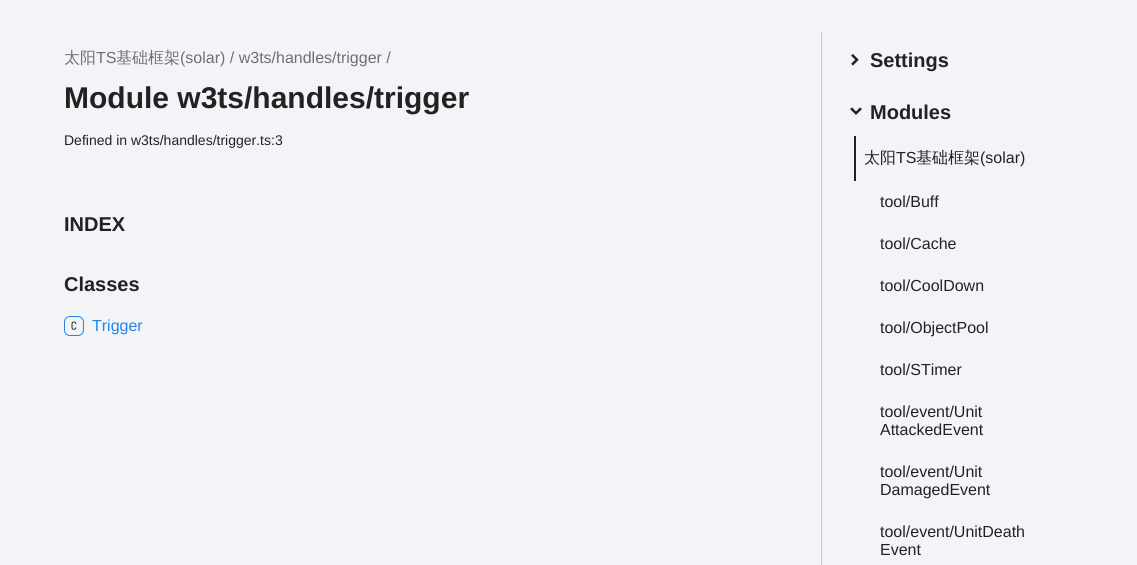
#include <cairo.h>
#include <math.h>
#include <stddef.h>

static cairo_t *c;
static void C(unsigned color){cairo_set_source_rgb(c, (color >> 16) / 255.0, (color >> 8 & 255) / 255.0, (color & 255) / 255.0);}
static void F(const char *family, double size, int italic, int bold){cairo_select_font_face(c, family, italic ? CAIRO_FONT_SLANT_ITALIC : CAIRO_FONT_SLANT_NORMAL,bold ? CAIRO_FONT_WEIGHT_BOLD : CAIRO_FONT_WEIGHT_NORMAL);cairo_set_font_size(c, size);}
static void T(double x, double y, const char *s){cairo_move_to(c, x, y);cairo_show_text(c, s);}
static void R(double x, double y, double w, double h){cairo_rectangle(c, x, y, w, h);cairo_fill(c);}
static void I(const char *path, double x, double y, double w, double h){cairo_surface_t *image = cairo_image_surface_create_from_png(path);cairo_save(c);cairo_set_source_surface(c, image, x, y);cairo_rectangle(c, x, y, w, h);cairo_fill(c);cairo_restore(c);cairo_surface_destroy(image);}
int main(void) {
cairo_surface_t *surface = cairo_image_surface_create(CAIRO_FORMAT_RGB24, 1137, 565);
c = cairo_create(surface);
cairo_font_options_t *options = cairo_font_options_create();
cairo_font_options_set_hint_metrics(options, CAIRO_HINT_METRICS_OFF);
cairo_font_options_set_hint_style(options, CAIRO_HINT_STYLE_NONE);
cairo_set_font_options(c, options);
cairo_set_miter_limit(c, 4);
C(0xf2f4f8);
cairo_paint(c);
F("WenQuanYi Zen Hei Medium",16,0,0);
C(0x707070);
T(64,63,"太阳");
F("Liberation Sans",16,0,0);
T(96,63,"TS");
F("WenQuanYi Zen Hei Medium",16,0,0);
T(116,63,"基础框架");
F("Liberation Sans",16,0,0);
T(180,63,"(solar) / w3ts/handles/trigger /");
F("Liberation Sans",30,0,1);
C(0x222222);
T(64,108,"Module w3ts/handles/trigger");
F("Liberation Sans",14,0,0);
T(64,145,"Defined in w3ts/handles/trigger.ts:3");
F("Liberation Sans",20,0,1);
T(64,231,"INDEX");
T(64,291,"Classes");
I("1.png",64,316,20,20);
F("Liberation Sans",16,0,0);
C(0x2484e5);
T(92,331,"Trigger");
C(0xc5c7c9);
R(821,32,1,533);
I("2.png",851,54,8,12);
F("Liberation Sans",20,0,1);
C(0x222222);
T(870,67,"Settings");
I("3.png",850,107,12,8);
T(870,119,"Modules");
R(854,136,2,45);
F("WenQuanYi Zen Hei Medium",16,0,0);
T(864,163,"太阳");
F("Liberation Sans",16,0,0);
T(896,163,"TS");
F("WenQuanYi Zen Hei Medium",16,0,0);
T(916,163,"基础框架");
F("Liberation Sans",16,0,0);
T(980,163,"(solar)");
T(880,207,"tool/Buff");
T(880,249,"tool/Cache");
T(880,291,"tool/CoolDown");
T(880,333,"tool/ObjectPool");
T(880,375,"tool/STimer");
T(880,417,"tool/event/Unit");
T(880,435,"AttackedEvent");
T(880,477,"tool/event/Unit");
T(880,495,"DamagedEvent");
T(880,537,"tool/event/UnitDeath");
T(880,555,"Event");
cairo_surface_write_to_png(surface, "o.png");
cairo_font_options_destroy(options);
cairo_destroy(c);
cairo_surface_destroy(surface);
return 0;
}
